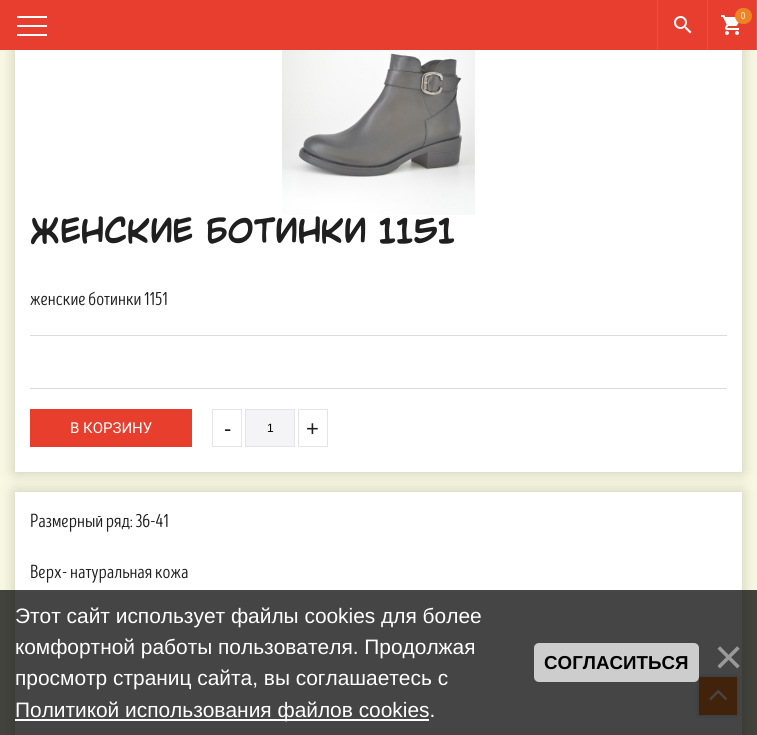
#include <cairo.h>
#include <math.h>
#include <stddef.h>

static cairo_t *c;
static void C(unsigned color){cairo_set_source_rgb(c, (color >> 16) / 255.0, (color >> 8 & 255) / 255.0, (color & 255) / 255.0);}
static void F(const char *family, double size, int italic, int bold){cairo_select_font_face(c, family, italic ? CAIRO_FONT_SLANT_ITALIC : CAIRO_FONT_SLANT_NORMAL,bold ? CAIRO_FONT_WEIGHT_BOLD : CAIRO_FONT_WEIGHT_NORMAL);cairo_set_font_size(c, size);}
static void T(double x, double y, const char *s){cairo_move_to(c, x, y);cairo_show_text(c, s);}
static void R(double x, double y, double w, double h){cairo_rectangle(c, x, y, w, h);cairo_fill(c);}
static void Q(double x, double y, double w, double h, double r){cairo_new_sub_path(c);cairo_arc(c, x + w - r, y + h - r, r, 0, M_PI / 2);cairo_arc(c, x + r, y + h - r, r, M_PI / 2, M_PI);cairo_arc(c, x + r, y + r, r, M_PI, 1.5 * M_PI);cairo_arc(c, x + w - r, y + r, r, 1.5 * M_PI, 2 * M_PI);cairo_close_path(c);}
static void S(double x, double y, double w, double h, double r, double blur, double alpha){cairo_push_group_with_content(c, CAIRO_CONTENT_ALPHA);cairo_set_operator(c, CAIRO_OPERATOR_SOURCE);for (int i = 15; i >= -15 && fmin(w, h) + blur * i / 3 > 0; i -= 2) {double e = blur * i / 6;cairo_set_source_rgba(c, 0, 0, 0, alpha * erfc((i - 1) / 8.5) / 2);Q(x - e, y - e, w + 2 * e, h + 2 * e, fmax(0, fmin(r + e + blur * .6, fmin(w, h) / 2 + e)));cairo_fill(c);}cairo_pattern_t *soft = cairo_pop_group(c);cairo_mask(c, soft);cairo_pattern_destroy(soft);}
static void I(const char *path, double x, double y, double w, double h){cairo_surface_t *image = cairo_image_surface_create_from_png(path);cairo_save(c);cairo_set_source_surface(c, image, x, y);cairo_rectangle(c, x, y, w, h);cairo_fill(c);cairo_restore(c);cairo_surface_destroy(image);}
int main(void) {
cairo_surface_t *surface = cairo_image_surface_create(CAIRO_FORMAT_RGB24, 757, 735);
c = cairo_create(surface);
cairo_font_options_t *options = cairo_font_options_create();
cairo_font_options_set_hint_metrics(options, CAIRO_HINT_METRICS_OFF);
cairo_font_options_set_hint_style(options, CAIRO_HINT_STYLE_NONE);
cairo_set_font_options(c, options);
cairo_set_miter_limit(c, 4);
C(0xf9f8e2);
cairo_paint(c);
C(0x000000);
S(15,-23,727,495,0,7.5,.2);
C(0xffffff);
R(15,50,727,422);
I("3.png",282,50,193,165);
cairo_rectangle(c,-.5,-.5,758,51);
cairo_set_source_rgba(c,1,1,1,0.1);
cairo_set_line_width(c,1);
cairo_stroke(c);
C(0xe73e2f);
R(0,0,756,50);
C(0xffffff);
R(17,16,30,2);
R(17,25,30,2);
R(17,34,30,2);
C(0xe95144);
R(657,0,1,50);
I("1.png",674,16,18,18);
R(756,0,1,50);
R(707,0,1,50);
I("2.png",721,15,18,20);
C(0xee8324);
Q(735,8,17,16,8);
cairo_fill(c);
F("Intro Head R",10,0,0);
C(0xffffff);
T(741,19,"0");
F("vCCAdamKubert",36,0,0);
C(0x1f1f1f);
T(30,243,"Женские ботинки 1151");
F("Intro Head R",19,0,0);
T(30,305,"женские ботинки 1151");
C(0xdbdbdb);
R(30,335,697,1);
R(30,388,697,1);
C(0xe73e2d);
R(30,409,162,38);
F("Roboto",15,0,0);
C(0xffffff);
T(70,433,"В КОРЗИНУ");
cairo_rectangle(c,212.5,409.5,29,37);
C(0xe5e5e5);
cairo_stroke(c);
F("Liberation Sans",22,0,0);
C(0x1f1f1f);
T(224,436,"-");
C(0xf4f4f6);
cairo_rectangle(c,245.5,409.5,49,37);
cairo_fill_preserve(c);
C(0xe5e5e5);
cairo_stroke(c);
F("Liberation Sans",12,0,0);
C(0x000000);
T(267,432,"1");
cairo_rectangle(c,298.5,409.5,29,37);
C(0xe5e5e5);
cairo_stroke(c);
F("Liberation Sans",22,0,0);
C(0x1f1f1f);
T(306,436,"+");
C(0x000000);
S(15,492,727,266,0,7.5,.2);
C(0xffffff);
R(15,492,727,243);
F("Intro Head R",19,0,0);
C(0x1f1f1f);
T(30,527,"Размерный ряд: 36-41");
T(30,578,"Верх- натуральная кожа");
C(0x000000);
S(699,677,38,38,0,2.5,.2);
C(0xee8324);
R(699,677,38,38);
I("4.png",709,689,19,12);
cairo_set_source_rgba(c,0,0,0,0.73);
R(0,590,757,145);
F("Liberation Sans",20.9,0,0);
C(0xffffff);
T(15,623,"Этот сайт использует файлы cookies для более");
T(15,654,"комфортной работы пользователя. Продолжая");
T(15,685,"просмотр страниц сайта, вы соглашаетесь с");
R(15,719,414,2);
T(15,717,"Политикой использования файлов cookies.");
cairo_set_source_rgba(c,1,1,1,0.73);
Q(534,643,165,39,5);
cairo_fill(c);
F("Liberation Sans",18.75,0,1);
C(0x000000);
T(544,669,"СОГЛАСИТЬСЯ");
F("Liberation Sans",50,0,0);
C(0x999999);
T(714,674,"×");
cairo_surface_write_to_png(surface, "o.png");
cairo_font_options_destroy(options);
cairo_destroy(c);
cairo_surface_destroy(surface);
return 0;
}
